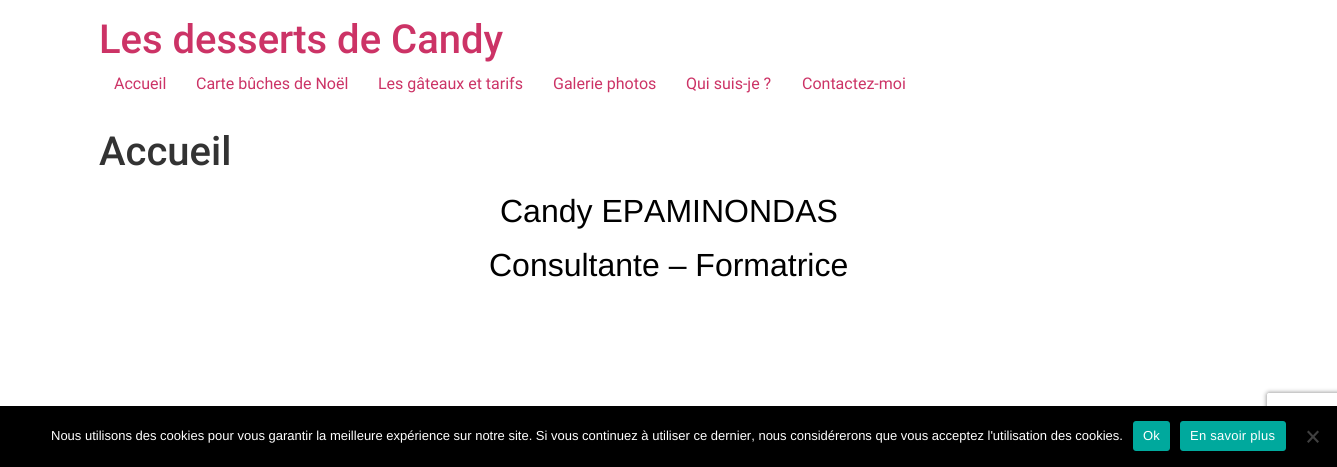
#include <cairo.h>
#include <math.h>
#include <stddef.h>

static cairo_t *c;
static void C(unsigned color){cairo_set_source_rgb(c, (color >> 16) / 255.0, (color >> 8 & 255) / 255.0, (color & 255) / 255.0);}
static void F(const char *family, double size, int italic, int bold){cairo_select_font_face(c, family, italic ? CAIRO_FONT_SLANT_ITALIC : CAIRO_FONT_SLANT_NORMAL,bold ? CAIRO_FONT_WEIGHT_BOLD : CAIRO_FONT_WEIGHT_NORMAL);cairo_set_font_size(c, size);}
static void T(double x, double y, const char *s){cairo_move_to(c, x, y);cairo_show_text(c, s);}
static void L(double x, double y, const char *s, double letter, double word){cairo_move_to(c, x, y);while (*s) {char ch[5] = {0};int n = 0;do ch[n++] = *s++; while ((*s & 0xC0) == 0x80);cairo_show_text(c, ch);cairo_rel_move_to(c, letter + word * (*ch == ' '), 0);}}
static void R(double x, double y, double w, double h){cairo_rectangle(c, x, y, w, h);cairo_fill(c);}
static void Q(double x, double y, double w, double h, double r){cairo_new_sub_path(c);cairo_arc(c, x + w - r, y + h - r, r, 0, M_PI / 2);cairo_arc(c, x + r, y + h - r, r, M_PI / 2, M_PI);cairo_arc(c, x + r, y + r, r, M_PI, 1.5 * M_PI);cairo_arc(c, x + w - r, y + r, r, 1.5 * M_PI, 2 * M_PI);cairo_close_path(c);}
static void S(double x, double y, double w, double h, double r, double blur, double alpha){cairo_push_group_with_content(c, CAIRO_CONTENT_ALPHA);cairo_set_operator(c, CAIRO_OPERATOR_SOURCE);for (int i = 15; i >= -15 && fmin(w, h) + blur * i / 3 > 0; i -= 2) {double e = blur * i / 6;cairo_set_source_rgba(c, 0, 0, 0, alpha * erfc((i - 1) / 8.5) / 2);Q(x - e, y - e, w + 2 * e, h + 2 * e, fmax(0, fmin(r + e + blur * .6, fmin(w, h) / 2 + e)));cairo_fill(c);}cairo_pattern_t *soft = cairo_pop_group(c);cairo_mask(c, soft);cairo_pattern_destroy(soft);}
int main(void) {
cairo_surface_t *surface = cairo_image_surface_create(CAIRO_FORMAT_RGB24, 1337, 467);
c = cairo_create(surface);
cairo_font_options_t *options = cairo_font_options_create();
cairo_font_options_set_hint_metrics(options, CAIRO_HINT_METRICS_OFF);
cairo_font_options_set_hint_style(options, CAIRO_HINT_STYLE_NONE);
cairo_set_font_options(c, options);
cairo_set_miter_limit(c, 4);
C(0xffffff);
cairo_paint(c);
F("Roboto Medium",40,0,0);
C(0xcc3366);
T(99,53,"Les desserts de Candy");
F("Roboto",16,0,0);
T(114,89,"Accueil");
T(196,89,"Carte bûches de Noël");
T(378,89,"Les gâteaux et tarifs");
T(553,89,"Galerie photos");
T(686,89,"Qui suis-je ?");
T(802,89,"Contactez-moi");
F("Roboto Medium",40,0,0);
C(0x333333);
T(99,165,"Accueil");
F("Liberation Sans",32,0,0);
C(0x000000);
T(500,222,"Candy EPAMINONDAS");
T(489,276,"Consultante – Formatrice");
cairo_save(c);
cairo_set_fill_rule(c,CAIRO_FILL_RULE_EVEN_ODD);
cairo_new_path(c);
cairo_move_to(c,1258,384);
cairo_line_to(c,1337,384);
cairo_line_to(c,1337,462);
cairo_line_to(c,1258,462);
cairo_close_path(c);
cairo_move_to(c,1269,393);
cairo_line_to(c,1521,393);
cairo_curve_to(c,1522,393,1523,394,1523,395);
cairo_line_to(c,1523,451);
cairo_curve_to(c,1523,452,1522,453,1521,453);
cairo_line_to(c,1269,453);
cairo_curve_to(c,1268,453,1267,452,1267,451);
cairo_line_to(c,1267,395);
cairo_curve_to(c,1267,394,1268,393,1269,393);
cairo_close_path(c);
cairo_clip(c);
C(0x808080);
S(1267,393,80,60,2,2.5,1);
cairo_restore(c);
R(0,406,1337,61);
F("Liberation Sans",13,0,0);
C(0xffffff);
T(51,440,"Nous utilisons des cookies pour vous garantir la meilleure expérience sur notre site. Si vous continuez à utiliser ce dernier, nous considérerons que vous acceptez l'utilisation des cookies.");
C(0x00a99d);
Q(1133,421,37,30,3);
cairo_fill(c);
C(0xffffff);
L(1143,440,"Ok",.25,0);
C(0x00a99d);
Q(1180,421,106,30,3);
cairo_fill(c);
C(0xffffff);
L(1190,440,"En savoir plus",.25,0);
C(0x404040);
cairo_new_path(c);
cairo_move_to(c,1317.5,430.5);
cairo_line_to(c,1319,432);
cairo_line_to(c,1308.5,443);
cairo_line_to(c,1307,441.5);
cairo_close_path(c);
cairo_fill(c);
cairo_new_path(c);
cairo_move_to(c,1307,432);
cairo_line_to(c,1308.5,430.5);
cairo_line_to(c,1319,441.5);
cairo_line_to(c,1317.5,443);
cairo_close_path(c);
cairo_fill(c);
cairo_surface_write_to_png(surface, "o.png");
cairo_font_options_destroy(options);
cairo_destroy(c);
cairo_surface_destroy(surface);
return 0;
}
